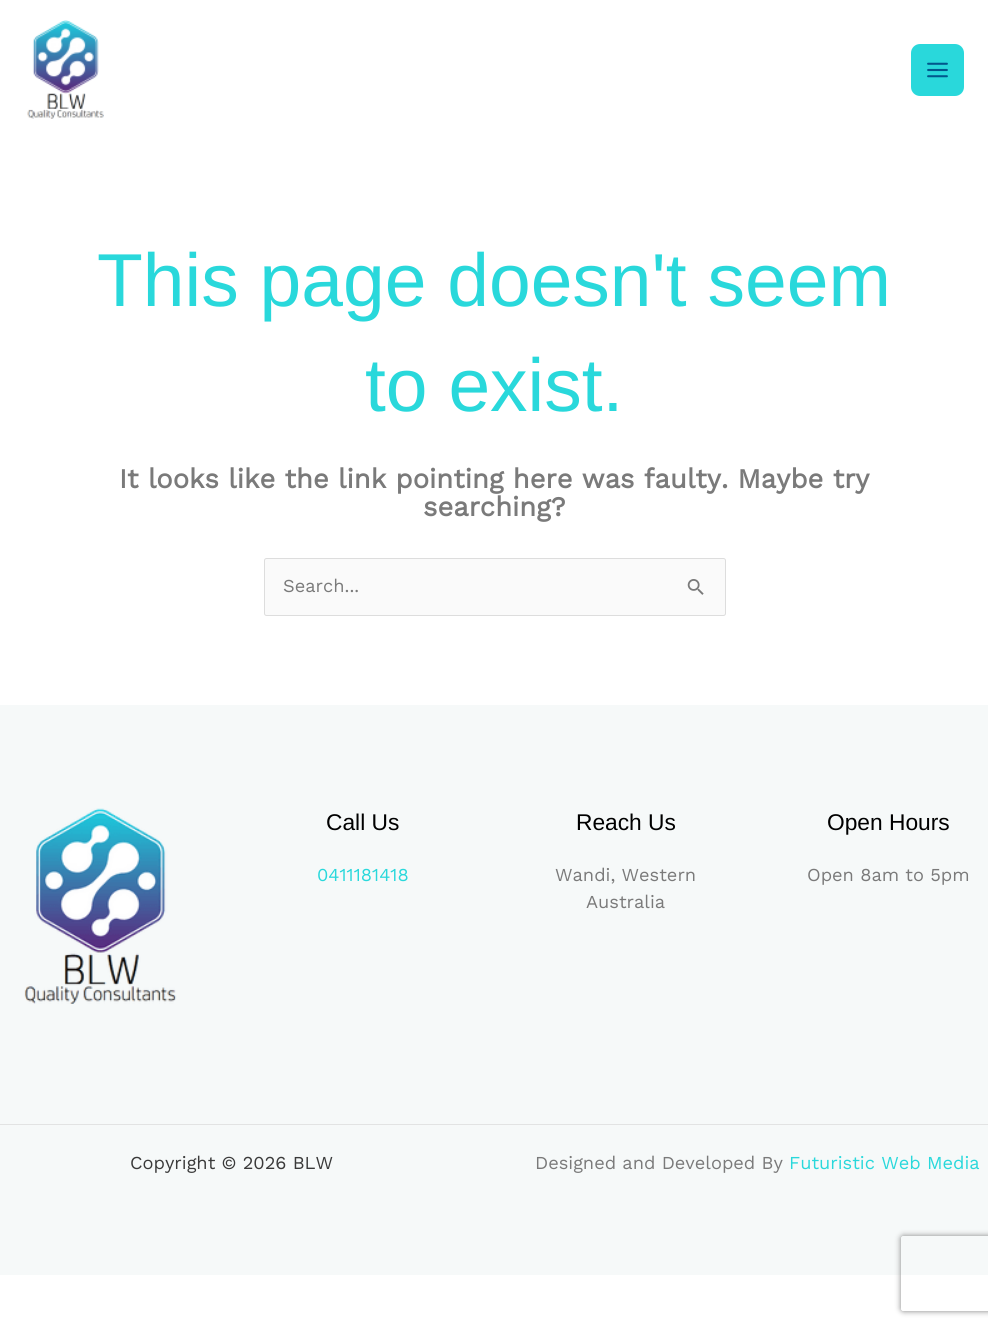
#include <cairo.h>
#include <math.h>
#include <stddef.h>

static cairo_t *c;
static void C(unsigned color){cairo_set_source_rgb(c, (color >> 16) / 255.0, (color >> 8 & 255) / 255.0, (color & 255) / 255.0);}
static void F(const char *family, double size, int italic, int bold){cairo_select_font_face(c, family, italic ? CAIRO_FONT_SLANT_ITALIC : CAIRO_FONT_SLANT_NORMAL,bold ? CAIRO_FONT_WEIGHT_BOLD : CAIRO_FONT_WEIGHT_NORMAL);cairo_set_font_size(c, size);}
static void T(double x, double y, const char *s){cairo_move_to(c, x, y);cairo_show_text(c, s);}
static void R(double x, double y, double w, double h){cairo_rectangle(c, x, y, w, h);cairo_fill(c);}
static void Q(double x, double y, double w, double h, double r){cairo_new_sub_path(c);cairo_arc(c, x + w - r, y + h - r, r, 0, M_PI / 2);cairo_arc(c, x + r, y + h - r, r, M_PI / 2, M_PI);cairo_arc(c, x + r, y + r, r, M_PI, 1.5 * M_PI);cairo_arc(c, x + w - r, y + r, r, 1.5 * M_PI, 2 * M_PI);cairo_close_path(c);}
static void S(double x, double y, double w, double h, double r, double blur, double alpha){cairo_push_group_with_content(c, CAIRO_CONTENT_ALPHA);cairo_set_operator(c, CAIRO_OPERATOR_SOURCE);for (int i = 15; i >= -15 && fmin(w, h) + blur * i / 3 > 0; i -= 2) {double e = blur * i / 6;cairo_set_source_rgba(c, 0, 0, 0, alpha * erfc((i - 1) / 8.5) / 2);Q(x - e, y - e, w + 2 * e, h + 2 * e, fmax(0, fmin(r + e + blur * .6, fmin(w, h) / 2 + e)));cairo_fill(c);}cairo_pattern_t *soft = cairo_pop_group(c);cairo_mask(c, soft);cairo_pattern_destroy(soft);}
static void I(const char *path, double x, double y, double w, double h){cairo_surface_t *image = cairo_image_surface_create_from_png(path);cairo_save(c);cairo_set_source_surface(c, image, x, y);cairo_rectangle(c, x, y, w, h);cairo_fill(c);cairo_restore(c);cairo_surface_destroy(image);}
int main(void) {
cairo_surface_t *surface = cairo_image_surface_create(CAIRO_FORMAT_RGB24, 988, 1328);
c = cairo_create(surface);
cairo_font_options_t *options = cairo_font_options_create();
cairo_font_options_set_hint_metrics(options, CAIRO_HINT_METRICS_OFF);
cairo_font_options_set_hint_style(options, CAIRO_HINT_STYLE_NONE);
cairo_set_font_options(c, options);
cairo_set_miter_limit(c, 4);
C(0xffffff);
cairo_paint(c);
I("1.png",27,20,77,99);
C(0x29d8db);
Q(911,44,53,52,9);
cairo_fill(c);
I("2.png",927,62,21,16);
F("Liberation Sans",75,0,0);
T(97,306,"This page doesn't seem");
T(365,411,"to exist.");
F("Work Sans",27.35,0,1);
C(0x7a7a7a);
T(119,488,"It looks like the link pointing here was faulty. Maybe try");
T(423,516,"searching?");
C(0xfafafa);
Q(264.5,558.5,461,57,2);
cairo_fill_preserve(c);
C(0xdddddd);
cairo_set_line_width(c,1);
cairo_stroke(c);
F("Work Sans",18.25,0,0);
C(0x7a7a7a);
T(283,592,"Search...");
I("3.png",687,579,17,16);
C(0xf6f9f9);
R(0,705,988,570);
I("4.png",24,808,153,196);
F("Liberation Sans",22.75,0,0);
C(0x000000);
T(326,830,"Call Us");
F("Work Sans",18.25,0,0);
C(0x29d8db);
T(317,881,"0411181418");
F("Liberation Sans",22.75,0,0);
C(0x000000);
T(576,830,"Reach Us");
F("Work Sans",18.25,0,0);
C(0x7a7a7a);
T(555,881,"Wandi, Western");
T(586,908,"Australia");
F("Liberation Sans",22.75,0,0);
C(0x000000);
T(827,830,"Open Hours");
F("Work Sans",18.25,0,0);
C(0x7a7a7a);
T(807,881,"Open 8am to 5pm");
C(0xe2e3e3);
R(0,1124,988,1);
C(0x3a3a3a);
T(130,1169,"Copyright © 2026 BLW");
C(0x7a7a7a);
T(535,1169,"Designed and Developed By");
C(0x29d8db);
T(789,1169,"Futuristic Web Media");
cairo_save(c);
cairo_set_fill_rule(c,CAIRO_FILL_RULE_EVEN_ODD);
cairo_new_path(c);
cairo_move_to(c,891,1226);
cairo_line_to(c,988,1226);
cairo_line_to(c,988,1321);
cairo_line_to(c,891,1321);
cairo_close_path(c);
cairo_move_to(c,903.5,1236);
cairo_line_to(c,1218.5,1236);
cairo_curve_to(c,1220,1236,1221,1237,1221,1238.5);
cairo_line_to(c,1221,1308.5);
cairo_curve_to(c,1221,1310,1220,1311,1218.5,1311);
cairo_line_to(c,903.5,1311);
cairo_curve_to(c,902,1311,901,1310,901,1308.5);
cairo_line_to(c,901,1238.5);
cairo_curve_to(c,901,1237,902,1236,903.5,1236);
cairo_close_path(c);
cairo_clip(c);
C(0x808080);
S(901,1236,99,75,2.5,3,1);
cairo_restore(c);
cairo_surface_write_to_png(surface, "o.png");
cairo_font_options_destroy(options);
cairo_destroy(c);
cairo_surface_destroy(surface);
return 0;
}
